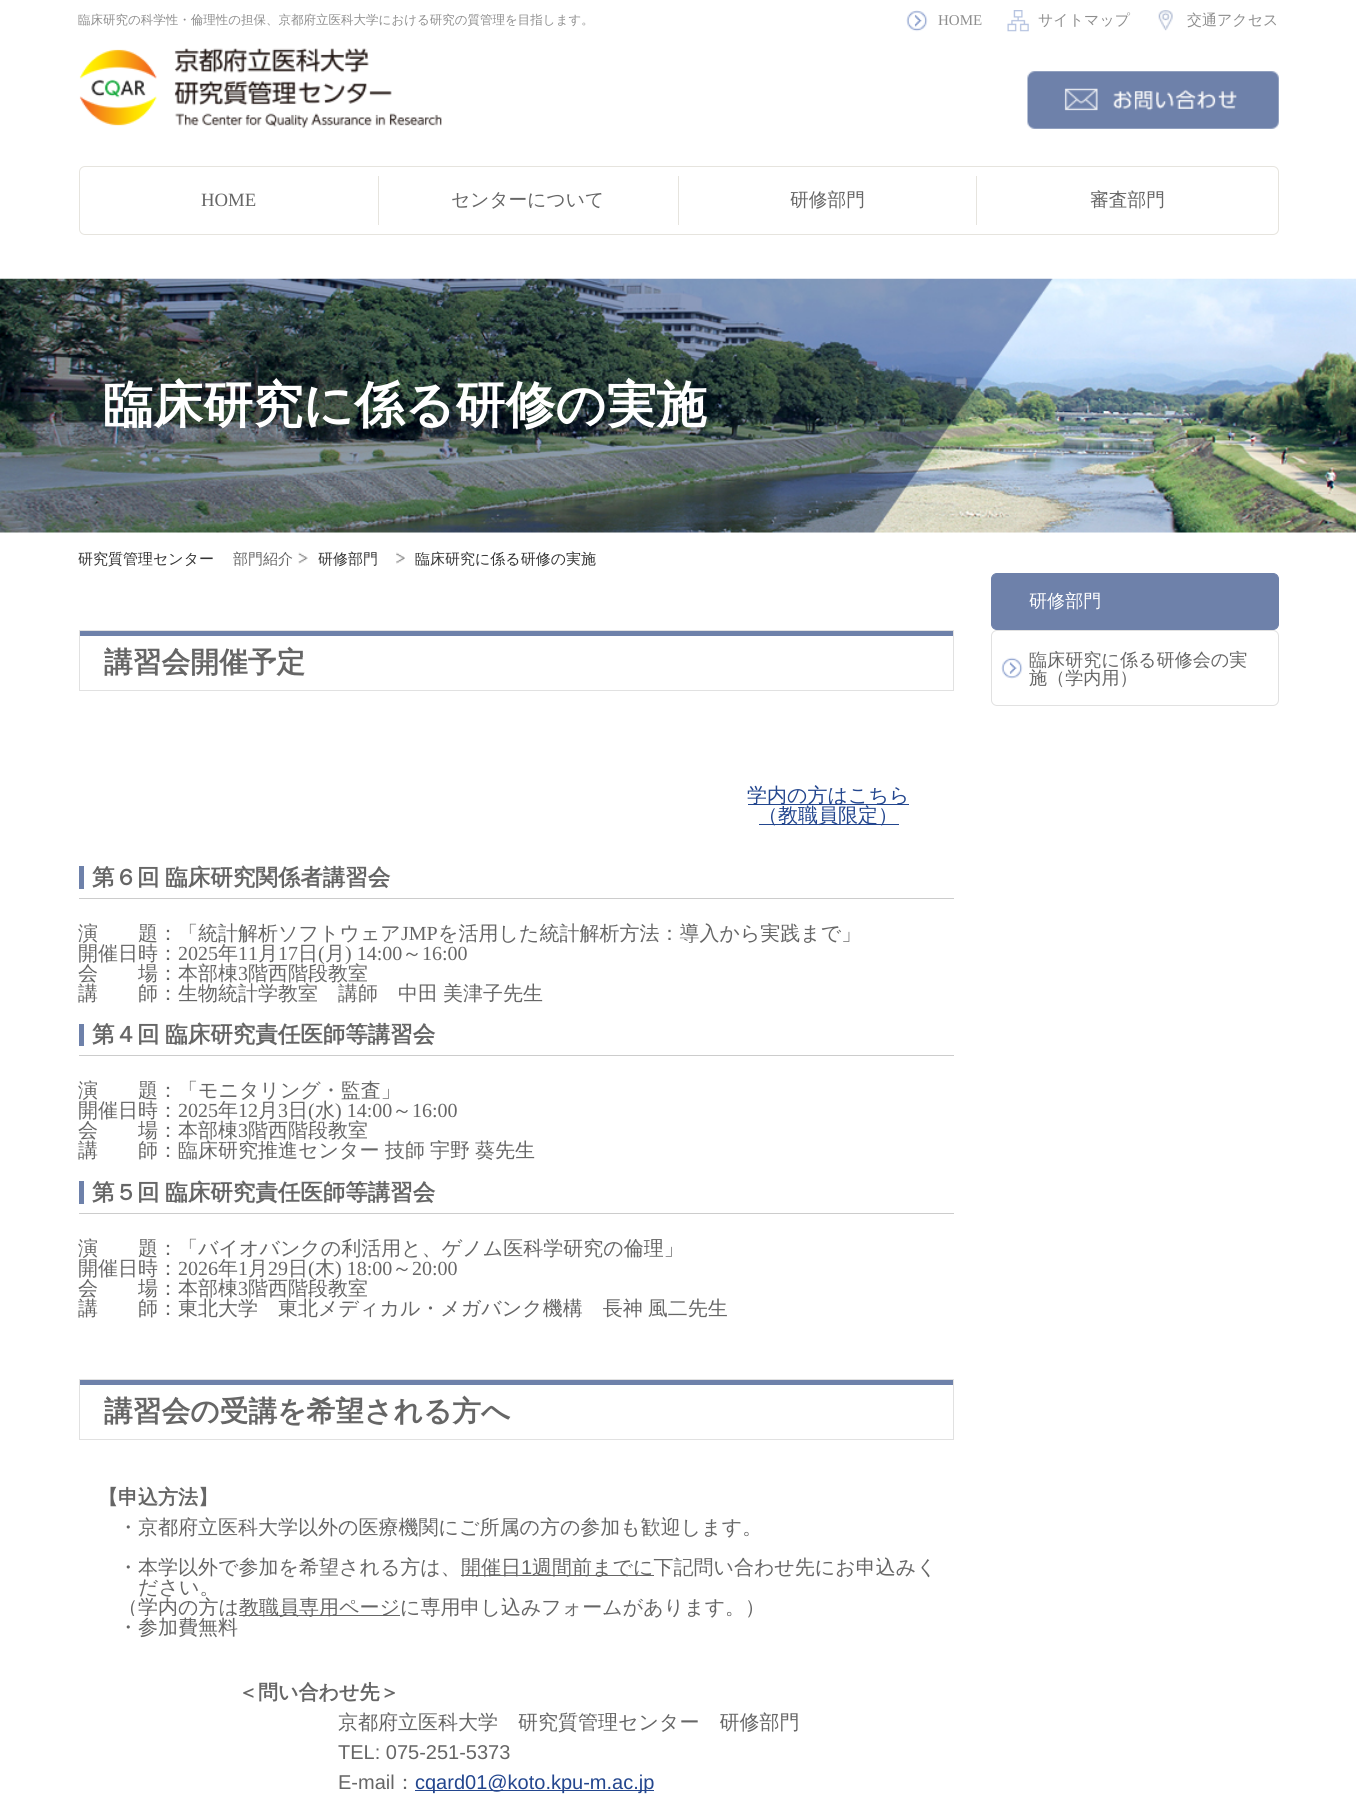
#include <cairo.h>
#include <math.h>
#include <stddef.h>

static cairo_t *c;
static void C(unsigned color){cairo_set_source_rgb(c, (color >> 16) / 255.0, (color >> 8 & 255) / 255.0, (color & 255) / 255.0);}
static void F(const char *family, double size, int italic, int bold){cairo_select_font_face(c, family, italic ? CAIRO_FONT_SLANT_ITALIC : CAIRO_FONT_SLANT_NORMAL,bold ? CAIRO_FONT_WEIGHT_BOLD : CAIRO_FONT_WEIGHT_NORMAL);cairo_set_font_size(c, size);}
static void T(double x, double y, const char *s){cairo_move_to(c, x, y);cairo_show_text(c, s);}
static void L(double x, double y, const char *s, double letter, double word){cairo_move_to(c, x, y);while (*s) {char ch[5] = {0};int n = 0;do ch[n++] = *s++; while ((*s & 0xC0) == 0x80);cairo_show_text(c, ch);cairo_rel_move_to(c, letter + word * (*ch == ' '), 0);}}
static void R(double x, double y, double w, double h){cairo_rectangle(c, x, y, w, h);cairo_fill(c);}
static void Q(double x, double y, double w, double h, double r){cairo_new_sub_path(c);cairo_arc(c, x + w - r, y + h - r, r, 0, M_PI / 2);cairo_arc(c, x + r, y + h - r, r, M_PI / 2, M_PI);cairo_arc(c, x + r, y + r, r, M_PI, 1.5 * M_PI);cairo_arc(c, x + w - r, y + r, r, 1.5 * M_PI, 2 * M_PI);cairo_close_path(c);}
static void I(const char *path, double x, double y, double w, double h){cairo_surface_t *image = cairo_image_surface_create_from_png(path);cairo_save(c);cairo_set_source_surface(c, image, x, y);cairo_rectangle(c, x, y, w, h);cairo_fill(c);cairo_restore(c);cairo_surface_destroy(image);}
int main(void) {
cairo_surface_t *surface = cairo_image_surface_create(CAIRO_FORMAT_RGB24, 1356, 1813);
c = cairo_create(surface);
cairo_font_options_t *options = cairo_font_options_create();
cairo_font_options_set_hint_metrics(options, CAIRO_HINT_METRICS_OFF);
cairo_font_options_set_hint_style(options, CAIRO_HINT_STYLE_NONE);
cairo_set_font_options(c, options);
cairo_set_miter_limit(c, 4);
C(0xffffff);
cairo_paint(c);
F("WenQuanYi Zen Hei Medium",12.5,0,0);
C(0x8e8e8e);
T(78,24,"臨床研究の科学性・倫理性の担保、京都府立医科大学における研究の質管理を目指します。");
I("1.png",906,10,22,22);
F("Liberation Serif",15,0,0);
T(938,25,"HOME");
I("2.png",1007,10,22,22);
F("WenQuanYi Zen Hei Medium",15,0,0);
T(1038,25,"サイトマップ");
I("3.png",1158,10,15,21);
T(1187,25,"交通アクセス");
I("4.png",79,48,363,80);
I("5.png",1027,71,252,58);
Q(79.5,166.5,1199,68,5.5);
C(0xe6e4de);
cairo_set_line_width(c,1);
cairo_stroke(c);
R(378,176,1,49);
F("Liberation Serif",18.75,0,0);
C(0x666666);
T(201,206,"HOME");
C(0xe6e4de);
R(678,176,1,49);
F("WenQuanYi Zen Hei Medium",18.75,0,0);
C(0x666666);
T(451,206,"センターについて");
C(0xe6e4de);
R(976,176,1,49);
C(0x666666);
T(790,206,"研修部門");
T(1090,206,"審査部門");
I("6.png",0,278,1356,255);
F("WenQuanYi Zen Hei",50,0,1);
C(0xffffff);
T(103,422,"臨床研究に係る研修の実施");
F("WenQuanYi Zen Hei Medium",15,0,0);
C(0x333333);
T(78,564,"研究質管理センター");
C(0x666666);
T(233,564,"部門紹介");
I("7.png",298,552,10,12);
C(0x333333);
T(318,564,"研修部門");
I("8.png",396,552,9,12);
T(415,564,"臨床研究に係る研修の実施");
cairo_rectangle(c,79.5,630.5,874,60);
C(0xe1e1e1);
cairo_stroke(c);
C(0x6e81aa);
R(80,631,873,5);
F("WenQuanYi Zen Hei",28.75,0,1);
C(0x666666);
T(104,672,"講習会開催予定");
C(0x23468e);
R(748,804,161,1);
F("WenQuanYi Zen Hei Medium",20,0,0);
T(747,802,"学内の方はこちら");
R(759,824,140,1);
T(758,822,"（教職員限定）");
C(0xcccccc);
R(79,898,875,1);
C(0x6e81aa);
R(79,866,5,23);
F("WenQuanYi Zen Hei",22.5,0,1);
C(0x666666);
L(92,885,"第６回 臨床研究関係者講習会",0,-1);
F("WenQuanYi Zen Hei Medium",20,0,0);
T(78,940,"演　　題：「統計解析ソフトウェア");
F("Liberation Serif",20,0,0);
T(401,940,"JMP");
F("WenQuanYi Zen Hei Medium",20,0,0);
T(438,940,"を活用した統計解析方法：導入から実践まで」");
T(78,960,"開催日時：");
F("Liberation Serif",20,0,0);
T(178,960,"2025");
F("WenQuanYi Zen Hei Medium",20,0,0);
T(218,960,"年");
F("Liberation Serif",20,0,0);
T(238,960,"11");
F("WenQuanYi Zen Hei Medium",20,0,0);
T(258,960,"月");
F("Liberation Serif",20,0,0);
T(278,960,"17");
F("WenQuanYi Zen Hei Medium",20,0,0);
T(298,960,"日");
F("Liberation Serif",20,0,0);
T(318,960,"(");
F("WenQuanYi Zen Hei Medium",20,0,0);
T(325,960,"月");
F("Liberation Serif",20,0,0);
T(345,960,") 14:00");
F("WenQuanYi Zen Hei Medium",20,0,0);
T(402,960,"～");
F("Liberation Serif",20,0,0);
T(422,960,"16:00");
F("WenQuanYi Zen Hei Medium",20,0,0);
T(78,980,"会　　場：本部棟");
F("Liberation Serif",20,0,0);
T(238,980,"3");
F("WenQuanYi Zen Hei Medium",20,0,0);
T(248,980,"階西階段教室");
T(78,1000,"講　　師：生物統計学教室　講師");
L(398,1000,"中田 美津子先生",0,-1);
C(0xcccccc);
R(79,1055,875,1);
C(0x6e81aa);
R(79,1024,5,22);
F("WenQuanYi Zen Hei",22.5,0,1);
C(0x666666);
L(92,1042,"第４回 臨床研究責任医師等講習会",0,-1);
F("WenQuanYi Zen Hei Medium",20,0,0);
T(78,1097,"演　　題：「モニタリング・監査」");
T(78,1117,"開催日時：");
F("Liberation Serif",20,0,0);
T(178,1117,"2025");
F("WenQuanYi Zen Hei Medium",20,0,0);
T(218,1117,"年");
F("Liberation Serif",20,0,0);
T(238,1117,"12");
F("WenQuanYi Zen Hei Medium",20,0,0);
T(258,1117,"月");
F("Liberation Serif",20,0,0);
T(278,1117,"3");
F("WenQuanYi Zen Hei Medium",20,0,0);
T(288,1117,"日");
F("Liberation Serif",20,0,0);
T(308,1117,"(");
F("WenQuanYi Zen Hei Medium",20,0,0);
T(315,1117,"水");
F("Liberation Serif",20,0,0);
T(335,1117,") 14:00");
F("WenQuanYi Zen Hei Medium",20,0,0);
T(392,1117,"～");
F("Liberation Serif",20,0,0);
T(412,1117,"16:00");
F("WenQuanYi Zen Hei Medium",20,0,0);
T(78,1137,"会　　場：本部棟");
F("Liberation Serif",20,0,0);
T(238,1137,"3");
F("WenQuanYi Zen Hei Medium",20,0,0);
T(248,1137,"階西階段教室");
T(78,1157,"講　　師：臨床研究推進センター");
T(385,1157,"技師");
L(430,1157,"宇野 葵先生",0,-1);
C(0xcccccc);
R(79,1213,875,1);
C(0x6e81aa);
R(79,1181,5,23);
F("WenQuanYi Zen Hei",22.5,0,1);
C(0x666666);
L(92,1200,"第５回 臨床研究責任医師等講習会",0,-1);
F("WenQuanYi Zen Hei Medium",20,0,0);
T(78,1255,"演　　題：「バイオバンクの利活用と、ゲノム医科学研究の倫理」");
T(78,1275,"開催日時：");
F("Liberation Serif",20,0,0);
T(178,1275,"2026");
F("WenQuanYi Zen Hei Medium",20,0,0);
T(218,1275,"年");
F("Liberation Serif",20,0,0);
T(238,1275,"1");
F("WenQuanYi Zen Hei Medium",20,0,0);
T(248,1275,"月");
F("Liberation Serif",20,0,0);
T(268,1275,"29");
F("WenQuanYi Zen Hei Medium",20,0,0);
T(288,1275,"日");
F("Liberation Serif",20,0,0);
T(308,1275,"(");
F("WenQuanYi Zen Hei Medium",20,0,0);
T(315,1275,"木");
F("Liberation Serif",20,0,0);
T(335,1275,") 18:00");
F("WenQuanYi Zen Hei Medium",20,0,0);
T(392,1275,"～");
F("Liberation Serif",20,0,0);
T(412,1275,"20:00");
F("WenQuanYi Zen Hei Medium",20,0,0);
T(78,1295,"会　　場：本部棟");
F("Liberation Serif",20,0,0);
T(238,1295,"3");
F("WenQuanYi Zen Hei Medium",20,0,0);
T(248,1295,"階西階段教室");
L(78,1315,"講　　師：東北大学　東北メディカル・メガバンク機構　長神 風二先生",0,-1);
cairo_rectangle(c,79.5,1379.5,874,60);
C(0xe1e1e1);
cairo_stroke(c);
C(0x6e81aa);
R(80,1380,873,5);
F("WenQuanYi Zen Hei",28.75,0,1);
C(0x666666);
T(104,1421,"講習会の受講を希望される方へ");
F("WenQuanYi Zen Hei",20,0,1);
T(98,1504,"【申込方法】");
F("WenQuanYi Zen Hei Medium",20,0,0);
T(118,1534,"・京都府立医科大学以外の医療機関にご所属の方の参加も歓迎します。");
T(118,1574,"・本学以外で参加を希望される方は、");
R(461,1575,193,1);
T(461,1574,"開催日");
F("Liberation Sans",20,0,0);
T(521,1574,"1");
F("WenQuanYi Zen Hei Medium",20,0,0);
T(532,1574,"週間前までに下記問い合わせ先にお申込みく");
T(138,1594,"ださい。");
T(118,1614,"（学内の方は");
R(239,1615,161,1);
T(239,1614,"教職員専用ページに専用申し込みフォームがあります。）");
C(0xffffff);
R(133,1616,100,2);
C(0x666666);
T(118,1634,"・参加費無料");
F("WenQuanYi Zen Hei",20,0,1);
T(238,1699,"＜問い合わせ先＞");
F("WenQuanYi Zen Hei Medium",20,0,0);
T(338,1729,"京都府立医科大学　研究質管理センター　研修部門");
F("Liberation Sans",20,0,0);
T(338,1759,"TEL: 075-251-5373");
T(338,1789,"E-mail");
F("WenQuanYi Zen Hei Medium",20,0,0);
T(395,1789,"：");
C(0x23468e);
R(415,1790,239,1);
F("Liberation Sans",20,0,0);
T(415,1789,"cqard01@koto.kpu-m.ac.jp");
C(0x6e81aa);
Q(991.5,573.5,287,56,5.5);
cairo_fill_preserve(c);
cairo_stroke(c);
F("WenQuanYi Zen Hei Medium",18.1,0,0);
C(0xffffff);
T(1029,607,"研修部門");
I("9.png",1001,657,22,22);
Q(991.5,630.5,287,75,5.5);
C(0xe1e1e1);
cairo_stroke(c);
C(0x666666);
T(1029,666,"臨床研究に係る研修会の実");
T(1029,684,"施（学内用）");
cairo_surface_write_to_png(surface, "o.png");
cairo_font_options_destroy(options);
cairo_destroy(c);
cairo_surface_destroy(surface);
return 0;
}
